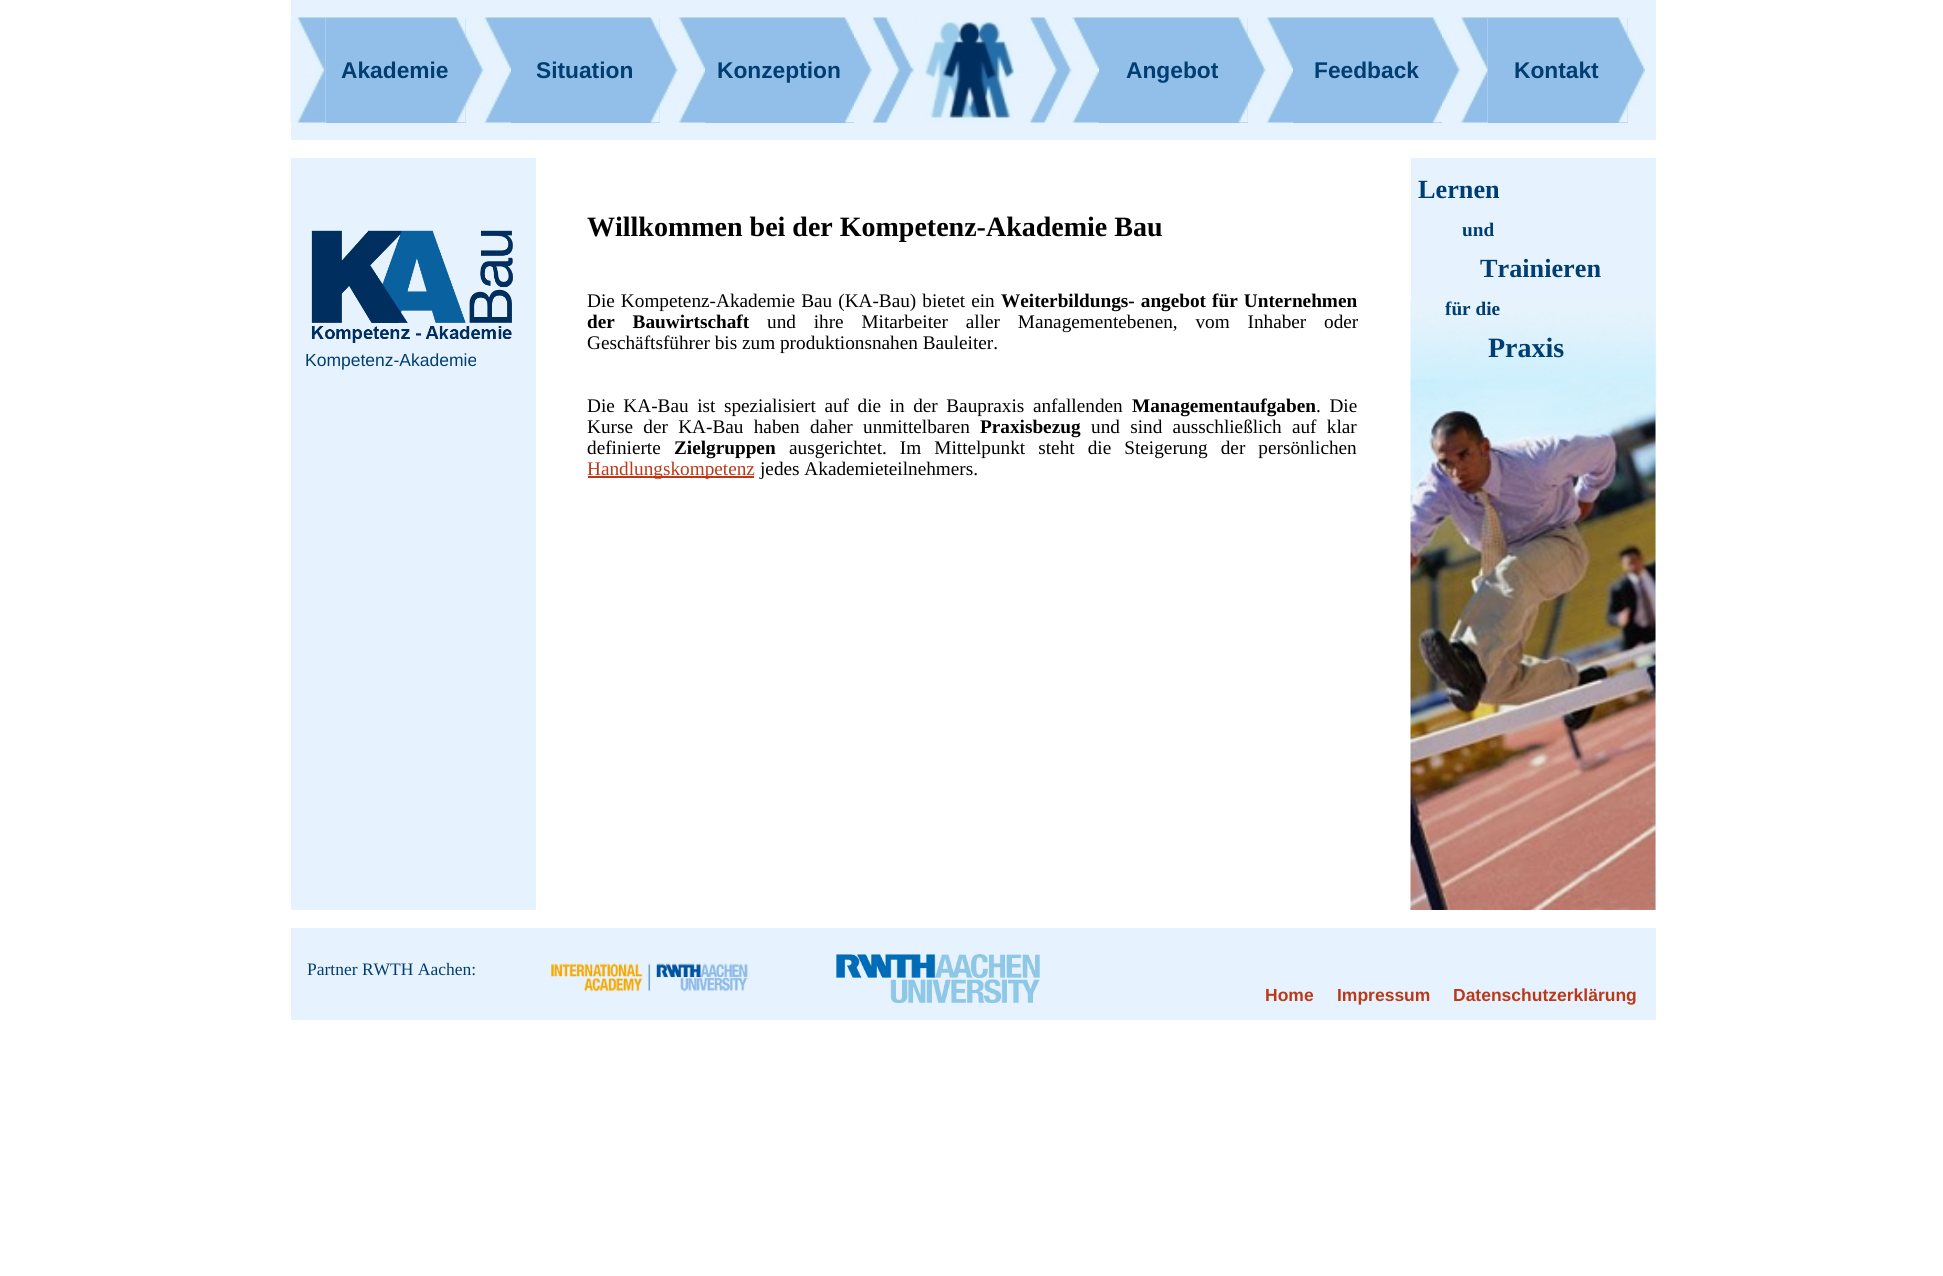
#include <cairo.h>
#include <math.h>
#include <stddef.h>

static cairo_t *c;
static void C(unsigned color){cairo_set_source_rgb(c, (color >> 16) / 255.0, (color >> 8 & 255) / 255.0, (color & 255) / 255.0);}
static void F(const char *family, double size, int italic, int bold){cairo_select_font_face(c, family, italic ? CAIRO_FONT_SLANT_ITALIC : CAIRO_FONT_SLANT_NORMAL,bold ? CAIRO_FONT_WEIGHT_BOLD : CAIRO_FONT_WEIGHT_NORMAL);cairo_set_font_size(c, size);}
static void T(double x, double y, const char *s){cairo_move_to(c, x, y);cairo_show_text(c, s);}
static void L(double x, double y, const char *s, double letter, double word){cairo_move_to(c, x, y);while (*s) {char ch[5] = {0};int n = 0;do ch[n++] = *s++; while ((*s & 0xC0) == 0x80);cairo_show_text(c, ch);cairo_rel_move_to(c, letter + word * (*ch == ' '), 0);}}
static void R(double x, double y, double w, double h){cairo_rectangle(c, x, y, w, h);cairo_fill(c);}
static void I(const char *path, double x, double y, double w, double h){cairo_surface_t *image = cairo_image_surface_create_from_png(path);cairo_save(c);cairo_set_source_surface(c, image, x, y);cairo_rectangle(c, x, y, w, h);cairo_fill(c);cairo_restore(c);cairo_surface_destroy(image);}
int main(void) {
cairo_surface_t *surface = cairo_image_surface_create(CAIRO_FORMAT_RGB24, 1943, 1276);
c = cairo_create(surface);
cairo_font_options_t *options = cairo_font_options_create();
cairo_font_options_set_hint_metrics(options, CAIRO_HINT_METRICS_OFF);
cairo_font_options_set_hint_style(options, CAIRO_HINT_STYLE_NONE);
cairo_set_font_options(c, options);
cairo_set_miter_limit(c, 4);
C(0xffffff);
cairo_paint(c);
C(0xe6f3ff);
R(291,0,1365,140);
I("1.png",290,17,36,106);
C(0x91bfe9);
R(326,18,140,105);
I("2.png",325,17,141,106);
F("Liberation Sans",22.75,0,1);
C(0x003e71);
T(341,78,"Akademie");
I("3.png",465,17,46,106);
C(0x91bfe9);
R(511,18,149,105);
I("4.png",511,17,149,106);
C(0x003e71);
T(536,78,"Situation");
I("5.png",659,17,47,106);
C(0x91bfe9);
R(705,18,149,105);
I("6.png",705,17,149,106);
C(0x003e71);
T(717,78,"Konzeption");
I("7.png",854,17,245,106);
C(0x91bfe9);
R(1099,18,149,105);
I("4.png",1099,17,149,106);
C(0x003e71);
T(1126,78,"Angebot");
I("5.png",1247,17,47,106);
C(0x91bfe9);
R(1293,18,149,105);
I("6.png",1293,17,149,106);
C(0x003e71);
T(1314,78,"Feedback");
I("8.png",1442,17,46,106);
C(0x91bfe9);
R(1488,18,140,105);
I("9.png",1487,17,141,106);
C(0x003e71);
T(1514,78,"Kontakt");
I("10.png",1627,18,18,105);
C(0xe6f3ff);
R(291,158,245,752);
I("11.png",311,230,202,113);
F("Liberation Sans",17.5,0,0);
C(0x003e71);
T(305,366,"Kompetenz-Akademie");
F("Liberation Serif",28,0,1);
C(0x000000);
T(587,236,"Willkommen bei der Kompetenz-Akademie Bau");
F("Liberation Serif",19.25,0,0);
L(587,307,"Die Kompetenz-Akademie Bau (KA-Bau) bietet ein",0,1.25);
F("Liberation Serif",19.25,0,1);
L(1001,307,"Weiterbildungs- angebot für Unternehmen",0,1.25);
L(587,328,"der Bauwirtschaft",0,13);
F("Liberation Serif",19.25,0,0);
L(767,328,"und ihre Mitarbeiter aller Managementebenen, vom Inhaber oder",0,13);
T(587,349,"Geschäftsführer bis zum produktionsnahen Bauleiter.");
L(587,412,"Die KA-Bau ist spezialisiert auf die in der Baupraxis anfallenden",0,3.75);
F("Liberation Serif",19.25,0,1);
T(1132,412,"Managementaufgaben");
F("Liberation Serif",19.25,0,0);
L(1316,412,". Die",0,3.75);
L(587,433,"Kurse der KA-Bau haben daher unmittelbaren",0,5.5);
F("Liberation Serif",19.25,0,1);
T(980,433,"Praxisbezug");
F("Liberation Serif",19.25,0,0);
L(1091,433,"und sind ausschließlich auf klar",0,5.5);
T(587,454,"definierte");
F("Liberation Serif",19.25,0,1);
T(674,454,"Zielgruppen");
F("Liberation Serif",19.25,0,0);
L(789,454,"ausgerichtet. Im Mittelpunkt steht die Steigerung der persönlichen",0,8.25);
C(0xbc3918);
R(588,476,166,2);
T(587,475,"Handlungskompetenz");
C(0x000000);
T(760,475,"jedes Akademieteilnehmers.");
C(0xe6f3ff);
R(1411,158,245,752);
I("12.png",1410,299,246,611);
F("Liberation Serif",26.25,0,1);
C(0x003e71);
T(1418,198,"Lernen");
F("Liberation Serif",19.25,0,1);
T(1462,236,"und");
F("Liberation Serif",26.25,0,1);
T(1480,277,"Trainieren");
F("Liberation Serif",19.25,0,1);
T(1445,315,"für die");
F("Liberation Serif",28,0,1);
T(1488,357,"Praxis");
C(0xe6f3ff);
R(291,928,1365,92);
F("Liberation Serif",17.5,0,0);
C(0x003e71);
T(307,975,"Partner RWTH Aachen:");
I("13.png",551,963,197,29);
I("14.png",836,954,204,50);
F("Liberation Sans",17.5,0,1);
C(0xbc3918);
T(1265,1001,"Home");
T(1337,1001,"Impressum");
T(1453,1001,"Datenschutzerklärung");
cairo_surface_write_to_png(surface, "o.png");
cairo_font_options_destroy(options);
cairo_destroy(c);
cairo_surface_destroy(surface);
return 0;
}
